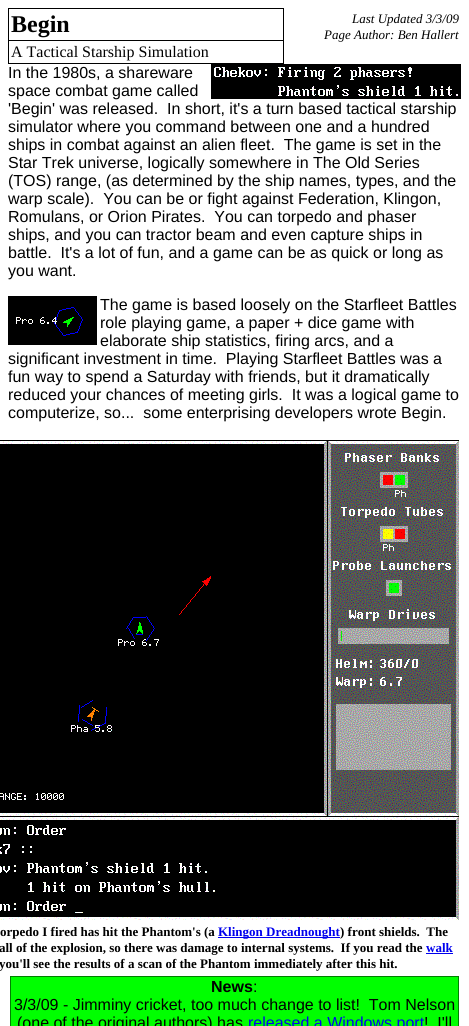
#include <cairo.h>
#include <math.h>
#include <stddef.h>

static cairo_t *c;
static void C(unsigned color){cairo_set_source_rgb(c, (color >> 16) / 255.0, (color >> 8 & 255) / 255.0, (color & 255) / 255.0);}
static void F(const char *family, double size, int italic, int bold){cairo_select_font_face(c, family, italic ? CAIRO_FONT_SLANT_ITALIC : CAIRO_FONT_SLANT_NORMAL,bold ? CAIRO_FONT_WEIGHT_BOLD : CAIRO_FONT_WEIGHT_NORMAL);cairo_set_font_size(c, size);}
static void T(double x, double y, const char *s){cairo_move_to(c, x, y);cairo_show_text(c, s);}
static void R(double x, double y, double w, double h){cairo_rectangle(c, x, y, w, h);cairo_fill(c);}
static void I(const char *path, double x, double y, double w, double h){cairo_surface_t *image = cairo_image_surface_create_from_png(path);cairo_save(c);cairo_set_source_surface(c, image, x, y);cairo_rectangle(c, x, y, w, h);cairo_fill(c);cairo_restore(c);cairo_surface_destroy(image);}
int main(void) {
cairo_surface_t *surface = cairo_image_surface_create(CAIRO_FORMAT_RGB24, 469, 1026);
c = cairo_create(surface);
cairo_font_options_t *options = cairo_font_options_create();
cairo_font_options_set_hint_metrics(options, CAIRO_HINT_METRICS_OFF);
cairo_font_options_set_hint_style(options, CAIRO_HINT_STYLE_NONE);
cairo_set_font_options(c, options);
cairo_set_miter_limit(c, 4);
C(0xffffff);
cairo_paint(c);
C(0x000000);
R(8,8,276,1);
R(8,40,276,1);
R(283,40,1,24);
R(283,8,1,33);
R(8,63,276,1);
R(8,40,1,24);
R(8,8,1,33);
F("Liberation Serif",24,0,1);
T(11,32,"Begin");
F("Liberation Serif",13,1,0);
T(352,23,"Last Updated 3/3/09");
T(324,39,"Page Author: Ben Hallert");
F("Liberation Serif",16,0,0);
T(11,57,"A Tactical Starship Simulation");
F("Liberation Sans",16,0,0);
T(8,78,"In the 1980s, a shareware");
I("1.png",211,64,250,35);
T(8,96,"space combat game called");
T(8,114,"'Begin' was released.  In short, it's a turn based tactical starship");
T(8,132,"simulator where you command between one and a hundred");
T(8,150,"ships in combat against an alien fleet.  The game is set in the");
T(8,168,"Star Trek universe, logically somewhere in The Old Series");
T(8,186,"(TOS) range, (as determined by the ship names, types, and the");
T(8,204,"warp scale).  You can be or fight against Federation, Klingon,");
T(8,222,"Romulans, or Orion Pirates.  You can torpedo and phaser");
T(8,240,"ships, and you can tractor beam and even capture ships in");
T(8,258,"battle.  It's a lot of fun, and a game can be as quick or long as");
T(8,276,"you want.");
I("2.png",8,296,89,49);
T(100,310,"The game is based loosely on the Starfleet Battles");
T(100,328,"role playing game, a paper + dice game with");
T(100,346,"elaborate ship statistics, firing arcs, and a");
T(8,364,"significant investment in time.  Playing Starfleet Battles was a");
T(8,382,"fun way to spend a Saturday with friends, but it dramatically");
T(8,400,"reduced your chances of meeting girls.  It was a logical game to");
T(8,418,"computerize, so...  some enterprising developers wrote Begin.");
I("3.png",0,440,459,480);
F("Liberation Serif",13,0,1);
T(0,936,"orpedo I fired has hit the Phantom's (a");
C(0x0000ee);
R(218,937,122,1);
T(218,936,"Klingon Dreadnought");
C(0x000000);
T(340,936,") front shields.  The");
T(-1,952,"all of the explosion, so there was damage to internal systems.  If you read the");
C(0x0000ee);
T(426,952,"walk");
R(426,953,27,1);
C(0x000000);
T(-1,968,"you'll see the results of a scan of the Phantom immediately after this hit.");
C(0x00ff00);
cairo_rectangle(c,10.5,976.5,448,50);
cairo_fill_preserve(c);
C(0x008000);
cairo_set_line_width(c,1);
cairo_stroke(c);
F("Liberation Sans",16,0,1);
C(0x000000);
T(211,992,"News");
F("Liberation Sans",16,0,0);
T(253,992,":");
T(14,1010,"3/3/09 - Jimminy cricket, too much change to list!  Tom Nelson");
T(17,1028,"(one of the original authors) has");
C(0x0000ee);
T(248,1028,"released a Windows port");
C(0x000000);
T(424,1028,"!  I'll");
cairo_surface_write_to_png(surface, "o.png");
cairo_font_options_destroy(options);
cairo_destroy(c);
cairo_surface_destroy(surface);
return 0;
}
